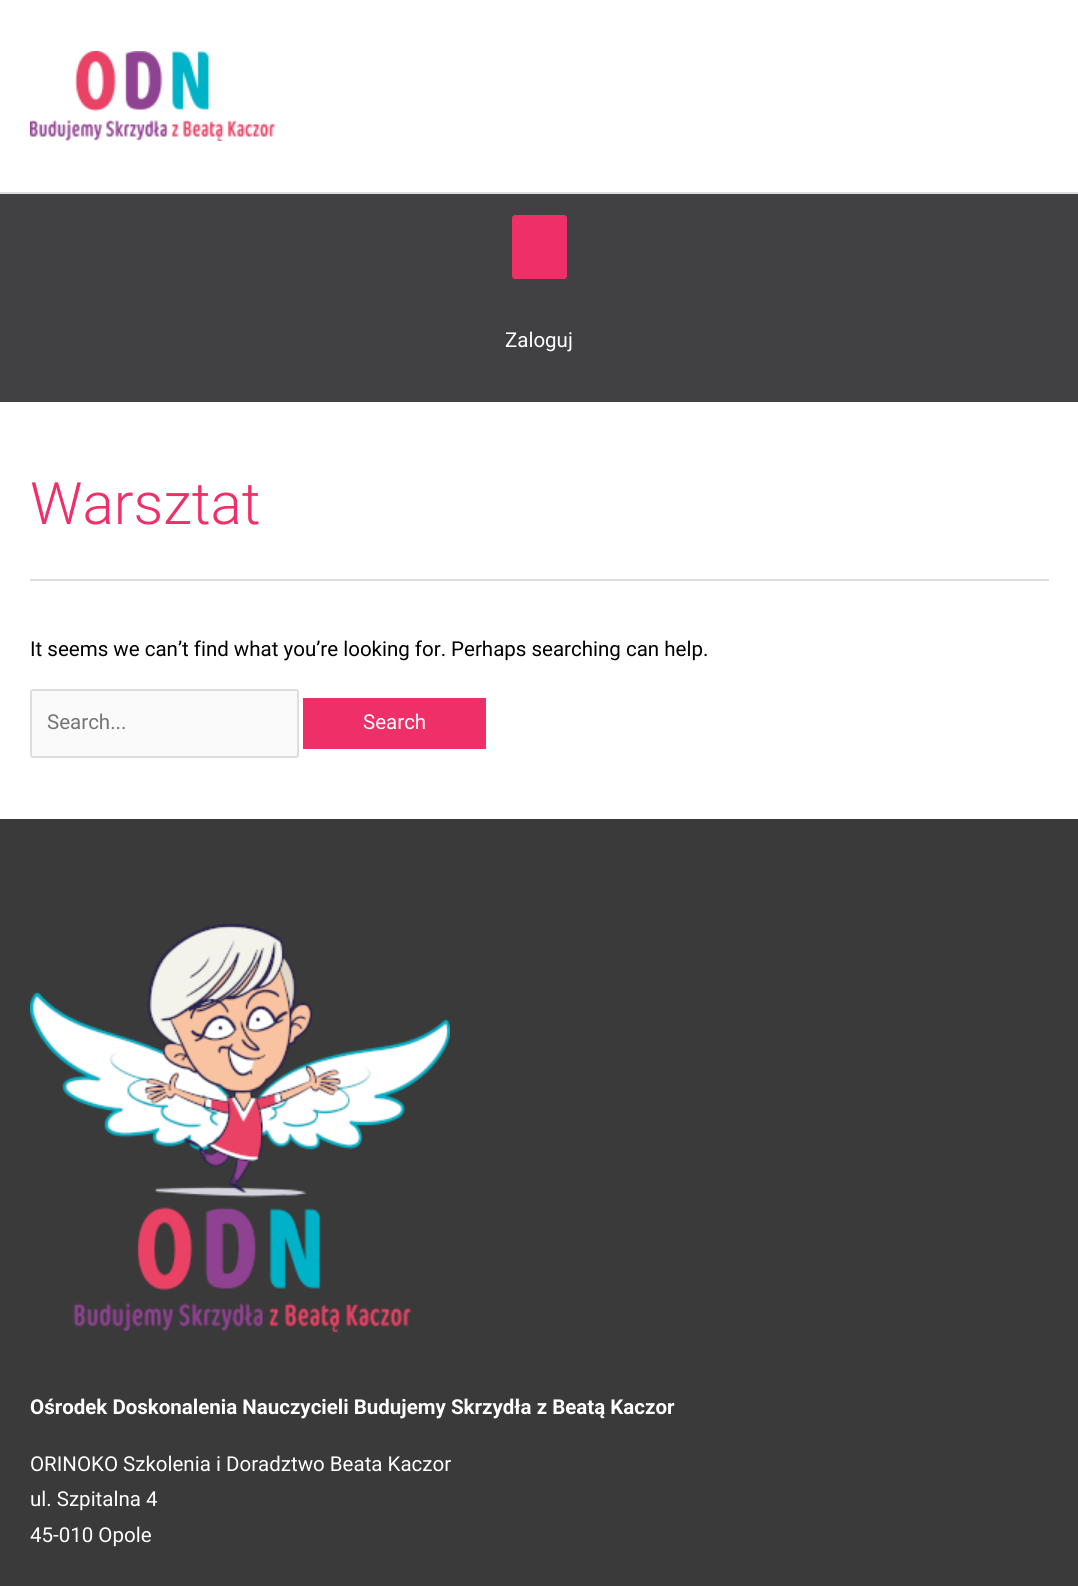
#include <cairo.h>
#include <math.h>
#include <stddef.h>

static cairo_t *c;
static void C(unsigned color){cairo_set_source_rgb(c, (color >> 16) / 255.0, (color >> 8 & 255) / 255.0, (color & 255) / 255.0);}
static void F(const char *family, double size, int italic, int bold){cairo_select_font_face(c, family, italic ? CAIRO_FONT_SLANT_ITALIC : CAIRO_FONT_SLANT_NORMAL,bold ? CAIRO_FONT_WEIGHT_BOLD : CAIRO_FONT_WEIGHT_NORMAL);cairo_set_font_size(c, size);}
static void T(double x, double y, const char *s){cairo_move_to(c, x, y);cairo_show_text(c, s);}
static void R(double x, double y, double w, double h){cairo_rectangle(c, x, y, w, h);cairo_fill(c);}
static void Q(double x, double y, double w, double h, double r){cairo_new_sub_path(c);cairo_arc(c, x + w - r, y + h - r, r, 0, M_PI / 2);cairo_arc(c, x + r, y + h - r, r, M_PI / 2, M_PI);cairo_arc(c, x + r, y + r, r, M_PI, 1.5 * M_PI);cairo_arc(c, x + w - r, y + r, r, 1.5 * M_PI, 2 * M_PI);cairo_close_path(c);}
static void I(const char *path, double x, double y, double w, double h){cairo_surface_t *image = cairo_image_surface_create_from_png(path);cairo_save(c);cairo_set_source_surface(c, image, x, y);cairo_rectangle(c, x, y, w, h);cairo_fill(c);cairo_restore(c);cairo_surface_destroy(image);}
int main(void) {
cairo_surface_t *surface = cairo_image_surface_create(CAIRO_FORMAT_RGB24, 1078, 1586);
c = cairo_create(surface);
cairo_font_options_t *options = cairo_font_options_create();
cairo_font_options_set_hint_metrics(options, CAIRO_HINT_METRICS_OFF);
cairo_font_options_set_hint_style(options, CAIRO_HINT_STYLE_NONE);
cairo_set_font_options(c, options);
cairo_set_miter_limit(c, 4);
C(0xffffff);
cairo_paint(c);
I("1.png",30,51,245,90);
C(0x414042);
R(0,194,1078,208);
C(0xdddddd);
R(0,192,1078,2);
C(0xef3068);
Q(512,215,55,64,3);
cairo_fill(c);
F("Roboto",20.5,0,0);
C(0xffffff);
T(505,347,"Zaloguj");
C(0xdddddd);
R(30,579,1019,2);
F("Roboto Light",58.5,0,0);
C(0xef3068);
T(30,524,"Warsztat");
F("Roboto",20.5,0,0);
C(0x000000);
T(30,656,"It seems we can’t find what you’re looking for. Perhaps searching can help.");
C(0xfafafa);
Q(31,690,267,67,2);
cairo_fill_preserve(c);
C(0xdddddd);
cairo_stroke(c);
C(0x757575);
T(47,729,"Search...");
C(0xef3068);
R(303,698,183,51);
C(0xffffff);
T(363,729,"Search");
C(0x3a3a3a);
R(0,819,1078,767);
I("2.png",30,924,420,408);
F("Roboto",20.5,0,1);
C(0xffffff);
T(30,1414,"Ośrodek Doskonalenia Nauczycieli Budujemy Skrzydła z Beatą Kaczor");
F("Roboto",20.5,0,0);
T(30,1471,"ORINOKO Szkolenia i Doradztwo Beata Kaczor");
T(30,1506,"ul. Szpitalna 4");
T(30,1542,"45-010 Opole");
cairo_surface_write_to_png(surface, "o.png");
cairo_font_options_destroy(options);
cairo_destroy(c);
cairo_surface_destroy(surface);
return 0;
}
